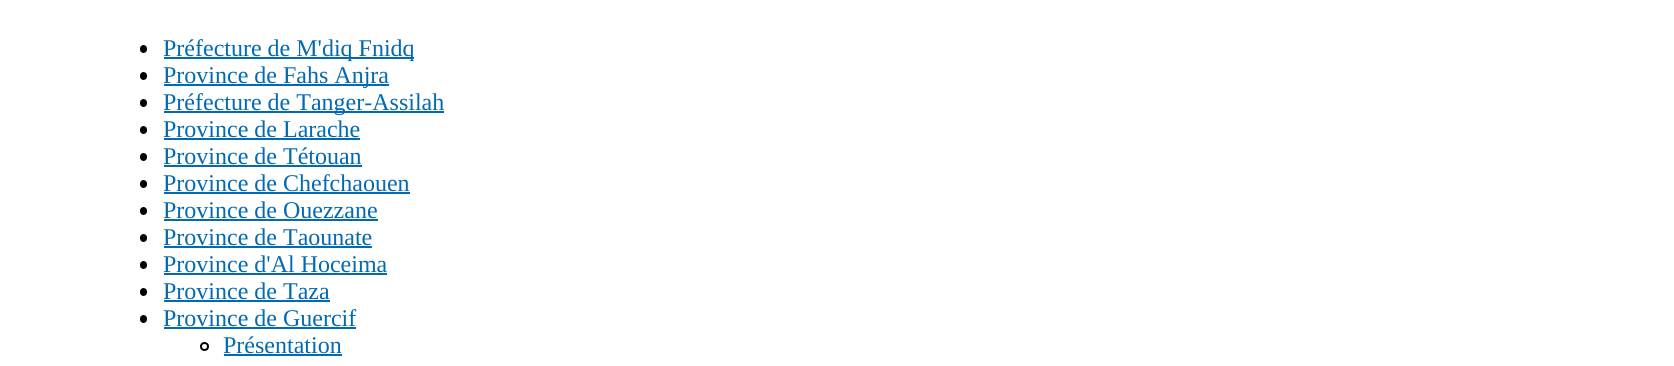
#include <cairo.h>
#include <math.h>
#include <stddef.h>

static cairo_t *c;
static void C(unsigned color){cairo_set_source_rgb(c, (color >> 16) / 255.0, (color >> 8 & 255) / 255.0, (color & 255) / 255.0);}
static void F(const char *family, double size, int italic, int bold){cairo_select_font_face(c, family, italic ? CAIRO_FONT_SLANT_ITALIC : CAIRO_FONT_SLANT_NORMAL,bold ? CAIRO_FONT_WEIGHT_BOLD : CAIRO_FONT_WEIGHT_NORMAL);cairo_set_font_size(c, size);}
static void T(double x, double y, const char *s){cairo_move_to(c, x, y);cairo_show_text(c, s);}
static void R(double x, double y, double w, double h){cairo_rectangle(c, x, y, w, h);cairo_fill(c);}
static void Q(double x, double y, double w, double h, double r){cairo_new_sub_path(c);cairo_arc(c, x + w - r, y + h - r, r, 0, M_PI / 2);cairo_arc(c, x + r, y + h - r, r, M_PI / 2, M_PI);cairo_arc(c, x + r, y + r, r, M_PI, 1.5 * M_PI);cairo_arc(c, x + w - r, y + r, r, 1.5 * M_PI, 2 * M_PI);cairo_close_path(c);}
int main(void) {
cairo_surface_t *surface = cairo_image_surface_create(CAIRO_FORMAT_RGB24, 1674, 366);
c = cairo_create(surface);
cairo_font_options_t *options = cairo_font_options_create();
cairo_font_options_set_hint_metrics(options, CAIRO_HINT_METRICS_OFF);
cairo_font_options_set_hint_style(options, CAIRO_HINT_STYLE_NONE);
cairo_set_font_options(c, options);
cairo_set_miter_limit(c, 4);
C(0xffffff);
cairo_paint(c);
C(0x000000);
Q(140,45,7,8,3.5);
cairo_fill(c);
C(0x0269b3);
R(164,57,250,2);
F("Liberation Serif",24,0,0);
T(163,56,"Préfecture de M'diq Fnidq");
C(0x000000);
Q(140,72,7,8,3.5);
cairo_fill(c);
C(0x0269b3);
R(164,84,225,2);
T(163,83,"Province de Fahs Anjra");
C(0x000000);
Q(140,99,7,8,3.5);
cairo_fill(c);
C(0x0269b3);
R(164,111,280,2);
T(163,110,"Préfecture de Tanger-Assilah");
C(0x000000);
Q(140,126,7,8,3.5);
cairo_fill(c);
C(0x0269b3);
T(163,137,"Province de Larache");
R(164,138,196,2);
C(0x000000);
Q(140,153,7,8,3.5);
cairo_fill(c);
C(0x0269b3);
T(163,164,"Province de Tétouan");
R(164,165,198,2);
C(0x000000);
Q(140,180,7,8,3.5);
cairo_fill(c);
C(0x0269b3);
T(163,191,"Province de Chefchaouen");
R(164,192,246,2);
C(0x000000);
Q(140,207,7,8,3.5);
cairo_fill(c);
C(0x0269b3);
T(163,218,"Province de Ouezzane");
R(164,219,214,2);
C(0x000000);
Q(140,234,7,8,3.5);
cairo_fill(c);
C(0x0269b3);
T(163,245,"Province de Taounate");
R(164,246,208,2);
C(0x000000);
Q(140,261,7,8,3.5);
cairo_fill(c);
C(0x0269b3);
T(163,272,"Province d'Al Hoceima");
R(164,273,223,2);
C(0x000000);
Q(140,288,7,8,3.5);
cairo_fill(c);
C(0x0269b3);
T(163,299,"Province de Taza");
R(164,300,166,2);
C(0x000000);
Q(140,315,7,8,3.5);
cairo_fill(c);
C(0x0269b3);
T(163,326,"Province de Guercif");
R(164,327,192,2);
cairo_new_path(c);
cairo_arc(c,204.5,346.5,3.5,0,2 * M_PI);
C(0x000000);
cairo_stroke(c);
C(0x0269b3);
T(223,353,"Présentation");
R(224,354,118,2);
cairo_surface_write_to_png(surface, "o.png");
cairo_font_options_destroy(options);
cairo_destroy(c);
cairo_surface_destroy(surface);
return 0;
}
